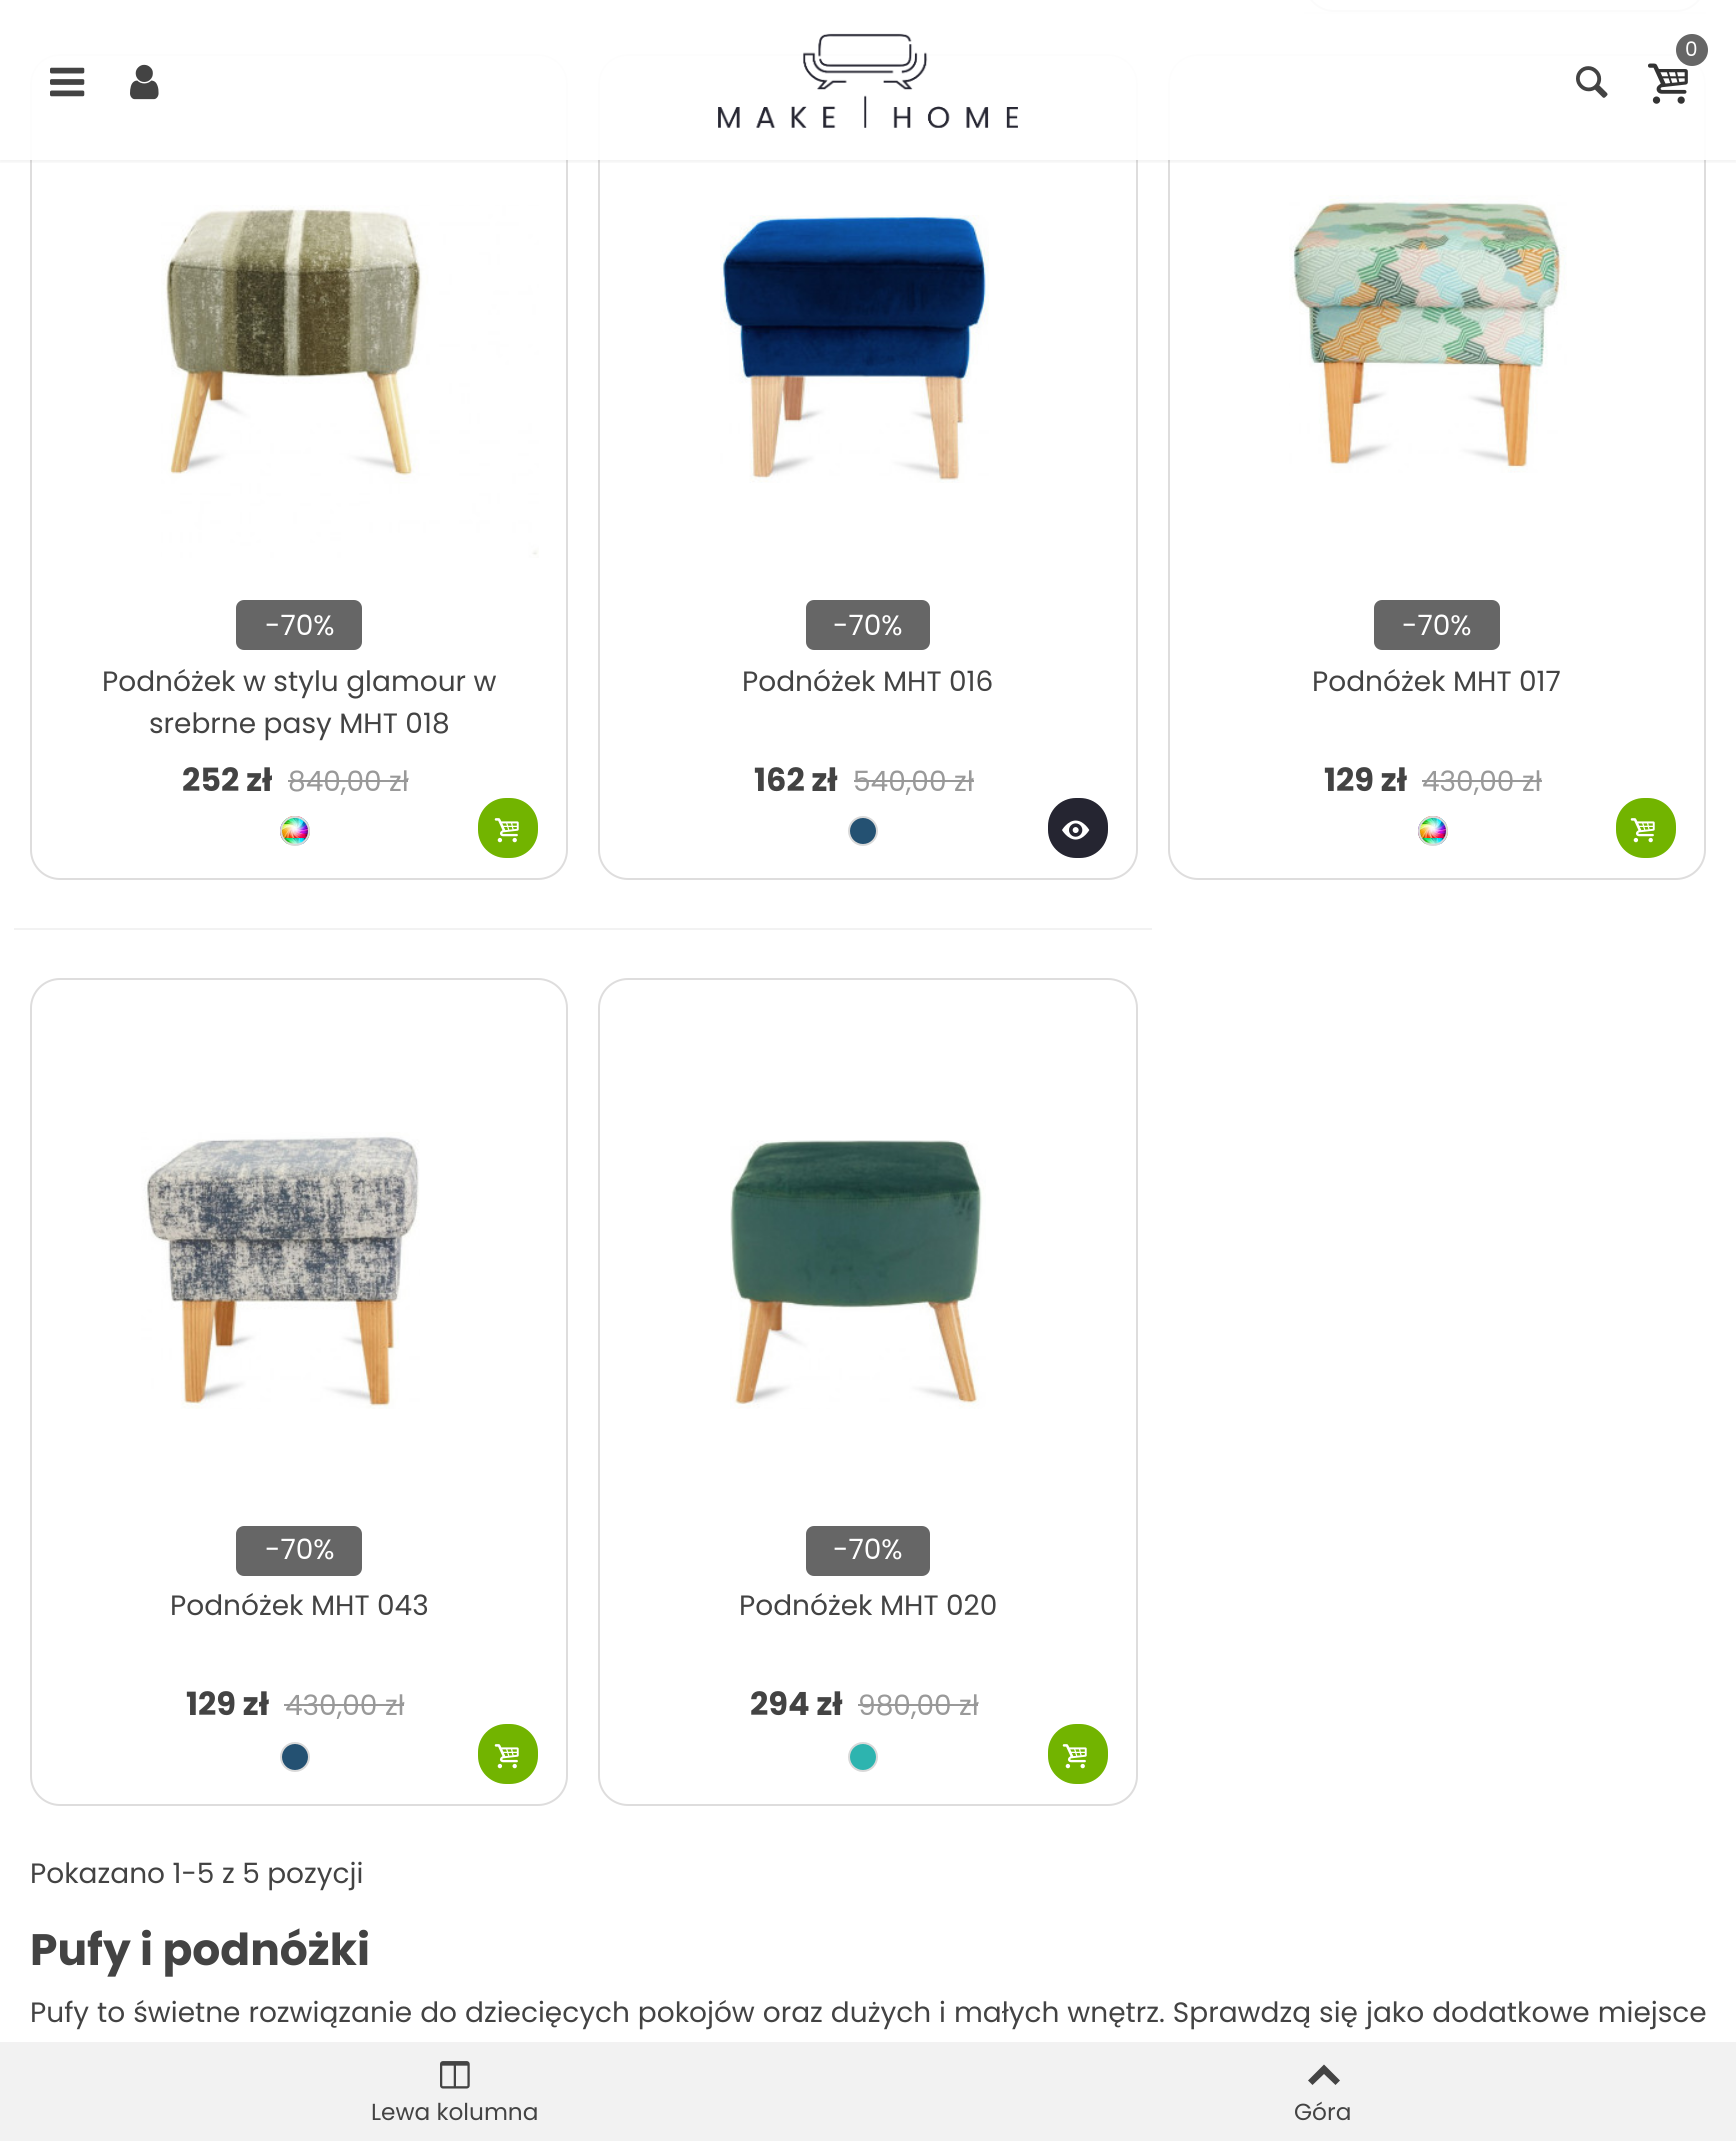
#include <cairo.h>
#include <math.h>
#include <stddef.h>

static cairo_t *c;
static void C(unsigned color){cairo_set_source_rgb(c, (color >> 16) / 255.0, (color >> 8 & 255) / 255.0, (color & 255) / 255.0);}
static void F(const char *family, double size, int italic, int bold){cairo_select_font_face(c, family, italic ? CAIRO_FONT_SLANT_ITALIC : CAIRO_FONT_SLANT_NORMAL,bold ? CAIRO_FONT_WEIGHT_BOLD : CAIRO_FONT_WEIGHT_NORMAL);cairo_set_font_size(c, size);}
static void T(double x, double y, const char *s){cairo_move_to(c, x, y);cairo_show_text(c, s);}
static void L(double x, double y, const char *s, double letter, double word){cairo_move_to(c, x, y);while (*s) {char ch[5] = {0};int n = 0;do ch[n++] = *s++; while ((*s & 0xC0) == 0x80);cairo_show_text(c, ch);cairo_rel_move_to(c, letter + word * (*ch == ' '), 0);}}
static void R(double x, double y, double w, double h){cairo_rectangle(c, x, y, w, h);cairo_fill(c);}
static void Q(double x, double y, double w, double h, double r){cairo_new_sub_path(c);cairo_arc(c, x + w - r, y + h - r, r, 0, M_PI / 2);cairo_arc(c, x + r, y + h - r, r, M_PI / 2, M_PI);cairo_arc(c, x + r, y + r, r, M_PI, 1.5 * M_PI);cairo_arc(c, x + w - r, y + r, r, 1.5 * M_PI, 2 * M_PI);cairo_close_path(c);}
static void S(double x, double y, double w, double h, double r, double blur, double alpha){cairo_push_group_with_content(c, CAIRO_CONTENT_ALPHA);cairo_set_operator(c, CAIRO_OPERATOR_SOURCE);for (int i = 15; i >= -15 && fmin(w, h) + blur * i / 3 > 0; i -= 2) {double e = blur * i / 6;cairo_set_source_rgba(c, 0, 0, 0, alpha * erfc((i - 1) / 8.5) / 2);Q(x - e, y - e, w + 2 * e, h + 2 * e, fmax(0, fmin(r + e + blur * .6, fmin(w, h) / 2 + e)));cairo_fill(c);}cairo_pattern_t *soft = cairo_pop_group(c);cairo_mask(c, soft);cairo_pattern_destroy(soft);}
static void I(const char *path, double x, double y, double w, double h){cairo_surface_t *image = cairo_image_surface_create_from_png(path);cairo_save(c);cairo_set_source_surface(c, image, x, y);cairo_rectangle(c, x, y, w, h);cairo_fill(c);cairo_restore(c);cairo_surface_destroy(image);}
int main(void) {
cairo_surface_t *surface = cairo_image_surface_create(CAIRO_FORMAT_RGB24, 1736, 2141);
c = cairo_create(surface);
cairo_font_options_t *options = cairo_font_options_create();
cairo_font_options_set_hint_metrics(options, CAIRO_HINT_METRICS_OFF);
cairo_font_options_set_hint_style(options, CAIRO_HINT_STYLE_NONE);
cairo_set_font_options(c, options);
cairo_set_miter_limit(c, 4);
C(0xffffff);
cairo_paint(c);
C(0xf2f2f2);
R(1304,12,402,2);
Q(1305,-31,400,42,29);
C(0xa8a8ad);
cairo_stroke(c);
Q(31,55,536,824,29);
C(0xdedddd);
cairo_stroke(c);
Q(599,55,538,824,29);
cairo_stroke(c);
Q(1169,55,536,824,29);
cairo_stroke(c);
cairo_save(c);
cairo_rectangle(c,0,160,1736,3);
cairo_clip(c);
C(0x000000);
S(0,0,1736,160,0,4,.1);
cairo_restore(c);
cairo_set_source_rgba(c,1,1,1,0.95);
R(30,0,1676,160);
I("1.png",718,33,300,95);
I("2.png",1648,63,40,41);
C(0x666666);
cairo_arc(c,1692,50,16,0,2 * M_PI);
cairo_fill(c);
F("Poppins",20,0,0);
C(0xffffff);
T(1685,56,"0");
I("3.png",1576,66,32,32);
I("4.png",50,67,35,30);
I("5.png",130,64,29,36);
I("6.png",161,205,378,353);
C(0x666666);
Q(236,600,126,50,8);
cairo_fill(c);
F("Poppins",28,0,0);
C(0xffffff);
T(265,635,"-70%");
F("Poppins",32,0,1);
C(0x434343);
T(182,791,"252 zł");
F("Poppins",28,0,0);
C(0x999999);
T(288,791,"840,00 zł");
R(288,780,120,2);
I("7.png",280,816,30,30);
cairo_arc(c,295,831,14,0,2 * M_PI);
C(0xd9d9d9);
cairo_stroke(c);
C(0x434343);
T(102,691,"Podnóżek w stylu glamour w");
T(149,733,"srebrne pasy MHT 018");
C(0x72b400);
Q(480,800,56,56,26);
cairo_fill_preserve(c);
cairo_set_line_width(c,4);
cairo_stroke(c);
I("8.png",494,818,25,25);
I("9.png",720,215,269,268);
C(0x666666);
Q(806,600,124,50,8);
cairo_fill(c);
C(0xffffff);
T(833,635,"-70%");
F("Poppins",32,0,1);
C(0x434343);
T(754,791,"162 zł");
F("Poppins",28,0,0);
C(0x999999);
T(853,791,"540,00 zł");
R(854,780,120,2);
C(0x245172);
cairo_new_path(c);
cairo_arc(c,863,831,14,0,2 * M_PI);
cairo_fill_preserve(c);
C(0xd9d9d9);
cairo_set_line_width(c,2);
cairo_stroke(c);
C(0x434343);
T(742,691,"Podnóżek MHT 016");
C(0x252531);
Q(1050,800,56,56,26);
cairo_fill_preserve(c);
cairo_set_line_width(c,4);
cairo_stroke(c);
I("10.png",1062,820,28,20);
I("11.png",1289,195,278,278);
C(0x666666);
Q(1374,600,126,50,8);
cairo_fill(c);
C(0xffffff);
T(1402,635,"-70%");
F("Poppins",32,0,1);
C(0x434343);
T(1324,791,"129 zł");
F("Poppins",28,0,0);
C(0x999999);
T(1422,791,"430,00 zł");
R(1422,780,120,2);
I("12.png",1418,816,30,30);
cairo_arc(c,1433,831,14,0,2 * M_PI);
C(0xd9d9d9);
cairo_set_line_width(c,2);
cairo_stroke(c);
C(0x434343);
T(1312,691,"Podnóżek MHT 017");
C(0x72b400);
Q(1618,800,56,56,26);
cairo_fill_preserve(c);
cairo_set_line_width(c,4);
cairo_stroke(c);
I("8.png",1630,818,25,25);
C(0xf2f2f2);
R(14,928,1138,2);
Q(31,979,536,826,29);
C(0xdedddd);
cairo_set_line_width(c,2);
cairo_stroke(c);
I("13.png",141,1132,279,277);
C(0x666666);
Q(236,1526,126,50,8);
cairo_fill(c);
C(0xffffff);
T(265,1559,"-70%");
F("Poppins",32,0,1);
C(0x434343);
T(186,1715,"129 zł");
F("Poppins",28,0,0);
C(0x999999);
T(285,1715,"430,00 zł");
R(284,1704,120,2);
C(0x245172);
cairo_new_path(c);
cairo_arc(c,295,1757,14,0,2 * M_PI);
cairo_fill_preserve(c);
C(0xd9d9d9);
cairo_stroke(c);
C(0x434343);
T(170,1615,"Podnóżek MHT 043");
C(0x72b400);
Q(480,1726,56,56,26);
cairo_fill_preserve(c);
cairo_set_line_width(c,4);
cairo_stroke(c);
I("8.png",494,1744,25,25);
Q(599,979,538,826,29);
C(0xdedddd);
cairo_set_line_width(c,2);
cairo_stroke(c);
I("14.png",730,1140,256,269);
C(0x666666);
Q(806,1526,124,50,8);
cairo_fill(c);
C(0xffffff);
T(833,1559,"-70%");
F("Poppins",32,0,1);
C(0x434343);
T(750,1715,"294 zł");
F("Poppins",28,0,0);
C(0x999999);
T(858,1715,"980,00 zł");
R(858,1704,120,2);
C(0x2db4af);
cairo_new_path(c);
cairo_arc(c,863,1757,14,0,2 * M_PI);
cairo_fill_preserve(c);
C(0xd9d9d9);
cairo_stroke(c);
C(0x434343);
T(739,1615,"Podnóżek MHT 020");
C(0x72b400);
Q(1050,1726,56,56,26);
cairo_fill_preserve(c);
cairo_set_line_width(c,4);
cairo_stroke(c);
I("8.png",1062,1744,25,25);
C(0x434343);
T(30,1883,"Pokazano 1-5 z 5 pozycji");
F("Poppins",44,0,1);
T(30,1965,"Pufy i podnóżki");
F("Poppins",28,0,0);
L(30,2022,"Pufy to świetne rozwiązanie do dziecięcych pokojów oraz dużych i małych wnętrz. Sprawdzą się jako dodatkowe miejsce",0,.5);
C(0xf2f2f2);
R(0,2042,1736,99);
I("15.png",440,2061,30,28);
F("Poppins",23.25,0,0);
C(0x434343);
T(371,2120,"Lewa kolumna");
C(0x444444);
cairo_new_path(c);
cairo_move_to(c,1308,2080.5);
cairo_line_to(c,1324,2064.5);
cairo_line_to(c,1340,2080.5);
cairo_line_to(c,1335.5,2085);
cairo_line_to(c,1324,2074);
cairo_line_to(c,1312.5,2085);
cairo_close_path(c);
cairo_fill(c);
C(0x434343);
T(1294,2120,"Góra");
cairo_surface_write_to_png(surface, "o.png");
cairo_font_options_destroy(options);
cairo_destroy(c);
cairo_surface_destroy(surface);
return 0;
}
